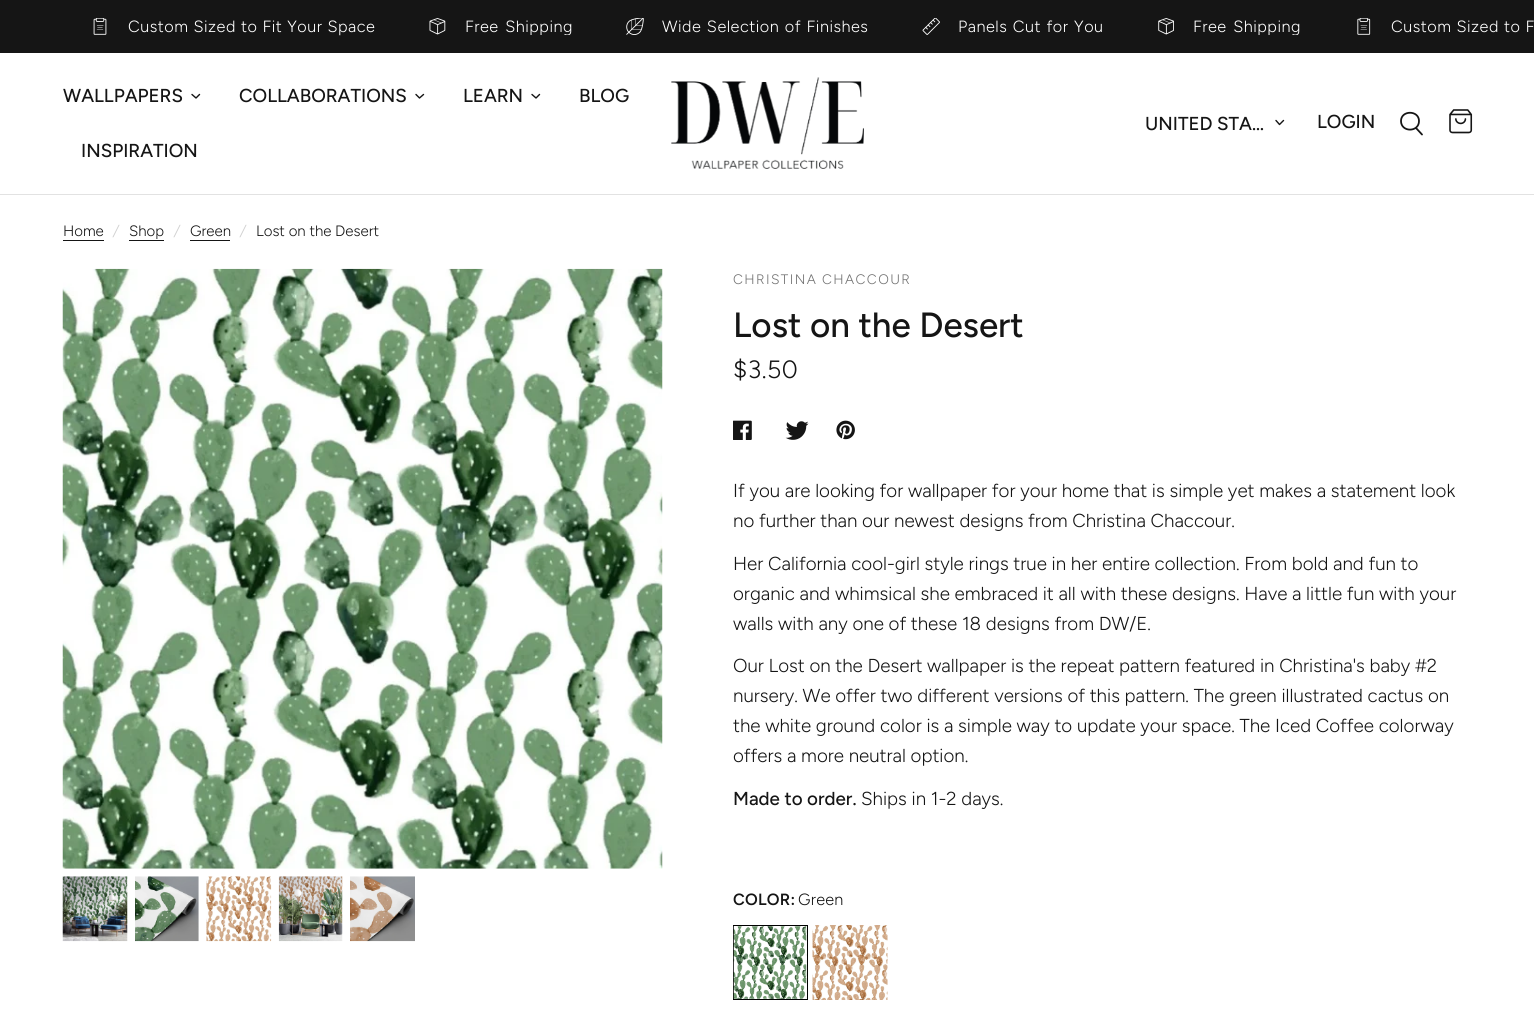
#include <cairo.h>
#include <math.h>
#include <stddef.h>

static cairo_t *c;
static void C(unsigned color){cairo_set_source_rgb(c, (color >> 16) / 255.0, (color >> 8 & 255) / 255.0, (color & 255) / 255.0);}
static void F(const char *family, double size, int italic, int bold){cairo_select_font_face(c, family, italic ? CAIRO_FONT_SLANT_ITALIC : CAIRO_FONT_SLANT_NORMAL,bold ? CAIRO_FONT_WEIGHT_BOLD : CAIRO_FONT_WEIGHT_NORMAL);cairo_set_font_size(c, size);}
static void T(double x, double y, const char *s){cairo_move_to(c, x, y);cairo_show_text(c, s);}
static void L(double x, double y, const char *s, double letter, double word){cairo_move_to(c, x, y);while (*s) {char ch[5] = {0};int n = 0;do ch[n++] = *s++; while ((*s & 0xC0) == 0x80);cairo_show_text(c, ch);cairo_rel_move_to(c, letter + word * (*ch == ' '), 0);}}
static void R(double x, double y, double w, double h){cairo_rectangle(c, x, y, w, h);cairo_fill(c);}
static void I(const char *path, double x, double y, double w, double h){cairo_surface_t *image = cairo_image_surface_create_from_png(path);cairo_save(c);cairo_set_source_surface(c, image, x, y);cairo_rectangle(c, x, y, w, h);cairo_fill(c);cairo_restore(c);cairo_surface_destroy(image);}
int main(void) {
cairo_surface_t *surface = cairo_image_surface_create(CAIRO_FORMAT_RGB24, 1534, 1035);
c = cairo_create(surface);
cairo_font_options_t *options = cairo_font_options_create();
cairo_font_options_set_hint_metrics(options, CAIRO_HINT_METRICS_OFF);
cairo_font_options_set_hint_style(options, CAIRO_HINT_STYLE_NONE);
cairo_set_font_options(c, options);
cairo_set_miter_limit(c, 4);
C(0xffffff);
cairo_paint(c);
C(0x151515);
R(0,0,1534,53);
I("1.png",93,18,14,17);
F("Figtree Light",16.25,0,0);
C(0xffffff);
L(128,32,"Custom Sized to Fit Your Space",.5,.5);
I("2.png",429,18,17,17);
cairo_save(c);
cairo_rectangle(c,0,18,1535,17);
cairo_clip(c);
L(465,32,"Free Shipping",.5,2);
cairo_restore(c);
I("3.png",626,18,18,17);
L(662,32,"Wide Selection of Finishes",.5,1);
I("4.png",922,18,18,17);
L(958,32,"Panels Cut for You",.5,1);
I("5.png",1158,18,16,17);
cairo_save(c);
cairo_rectangle(c,0,18,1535,17);
cairo_clip(c);
L(1193,32,"Free Shipping",.5,2);
cairo_restore(c);
I("6.png",1357,18,14,17);
L(1391,32,"Custom Sized to F",.5,.5);
C(0xe2e2e2);
R(0,194,1534,1);
F("Figtree Medium",18.75,0,0);
C(0x151515);
T(63,102,"WALLPAPERS");
cairo_new_path(c);
cairo_move_to(c,199.5,94.5);
cairo_line_to(c,196,98);
cairo_line_to(c,192,94.5);
cairo_set_line_width(c,1.4);
cairo_set_line_cap(c,CAIRO_LINE_CAP_ROUND);
cairo_set_line_join(c,CAIRO_LINE_JOIN_ROUND);
cairo_stroke(c);
T(239,102,"COLLABORATIONS");
cairo_new_path(c);
cairo_move_to(c,423.5,94.5);
cairo_line_to(c,419.5,98);
cairo_line_to(c,416,94.5);
cairo_stroke(c);
T(463,102,"LEARN");
cairo_new_path(c);
cairo_move_to(c,539.5,94.5);
cairo_line_to(c,536,98);
cairo_line_to(c,532,94.5);
cairo_stroke(c);
T(579,102,"BLOG");
T(81,157,"INSPIRATION");
I("7.png",671,77,193,92);
T(1145,130,"UNITED STA…");
cairo_new_path(c);
cairo_move_to(c,1283.5,120.5);
cairo_line_to(c,1279.5,124.5);
cairo_line_to(c,1276,120.5);
cairo_stroke(c);
T(1317,128,"LOGIN");
cairo_new_path(c);
cairo_move_to(c,1416,128);
cairo_line_to(c,1422,134.5);
cairo_move_to(c,1419,121);
cairo_curve_to(c,1419,132.5,1401,132.5,1401,121);
cairo_curve_to(c,1401,110,1419,110,1419,121);
cairo_close_path(c);
cairo_set_line_width(c,1.8);
cairo_stroke(c);
I("8.png",1449,109,24,25);
F("Figtree Light",15,0,0);
T(63,236,"Home");
R(63,240,41,1);
F("Figtree Light",15,1,0);
C(0xd0d0d0);
T(113,236,"/");
F("Figtree Light",15,0,0);
C(0x151515);
T(129,236,"Shop");
R(129,240,35,1);
F("Figtree Light",15,1,0);
C(0xd0d0d0);
T(174,236,"/");
F("Figtree Light",15,0,0);
C(0x151515);
T(190,236,"Green");
R(190,240,40,1);
F("Figtree Light",15,1,0);
C(0xd0d0d0);
T(240,236,"/");
F("Figtree Light",15,0,0);
C(0x151515);
T(256,236,"Lost on the Desert");
I("9.png",62,268,601,601);
I("10.png",62,876,66,66);
I("11.png",135,876,64,66);
I("12.png",206,876,66,66);
I("13.png",278,876,65,66);
I("14.png",350,876,65,66);
F("Figtree Light",13.75,0,0);
C(0x737373);
L(733,284,"CHRISTINA CHACCOUR",1.4,0);
F("Figtree Medium",35,0,0);
C(0x151515);
T(733,337,"Lost on the Desert");
F("Figtree Light",25,0,0);
L(733,378,"$3.50",.5,0);
I("15.png",733,420,19,20);
I("16.png",785,421,24,19);
I("17.png",836,420,19,20);
F("Figtree Light",18.75,0,0);
T(733,497,"If you are looking for wallpaper for your home that is simple yet makes a statement look");
T(733,527,"no further than our newest designs from Christina Chaccour.");
T(733,570,"Her California cool-girl style rings true in her entire collection. From bold and fun to");
T(733,600,"organic and whimsical she embraced it all with these designs. Have a little fun with your");
T(733,630,"walls with any one of these 18 designs from DW/E.");
T(733,672,"Our Lost on the Desert wallpaper is the repeat pattern featured in Christina's baby #2");
T(733,702,"nursery. We offer two different versions of this pattern. The green illustrated cactus on");
T(733,732,"the white ground color is a simple way to update your space. The Iced Coffee colorway");
T(733,762,"offers a more neutral option.");
F("Figtree Medium",18.75,0,0);
T(733,805,"Made to order.");
F("Figtree Light",18.75,0,0);
T(861,805,"Ships in 1-2 days.");
F("Figtree SemiBold",16.25,0,0);
L(733,905,"COLOR:",.25,0);
F("Figtree Light",16.25,0,0);
L(798,905,"Green",.25,0);
cairo_rectangle(c,733.5,925.5,74,74);
C(0x000000);
cairo_set_line_width(c,1);
cairo_set_line_cap(c,CAIRO_LINE_CAP_BUTT);
cairo_set_line_join(c,CAIRO_LINE_JOIN_MITER);
cairo_stroke(c);
I("18.png",733,926,74,73);
I("19.png",812,925,76,75);
cairo_surface_write_to_png(surface, "o.png");
cairo_font_options_destroy(options);
cairo_destroy(c);
cairo_surface_destroy(surface);
return 0;
}
